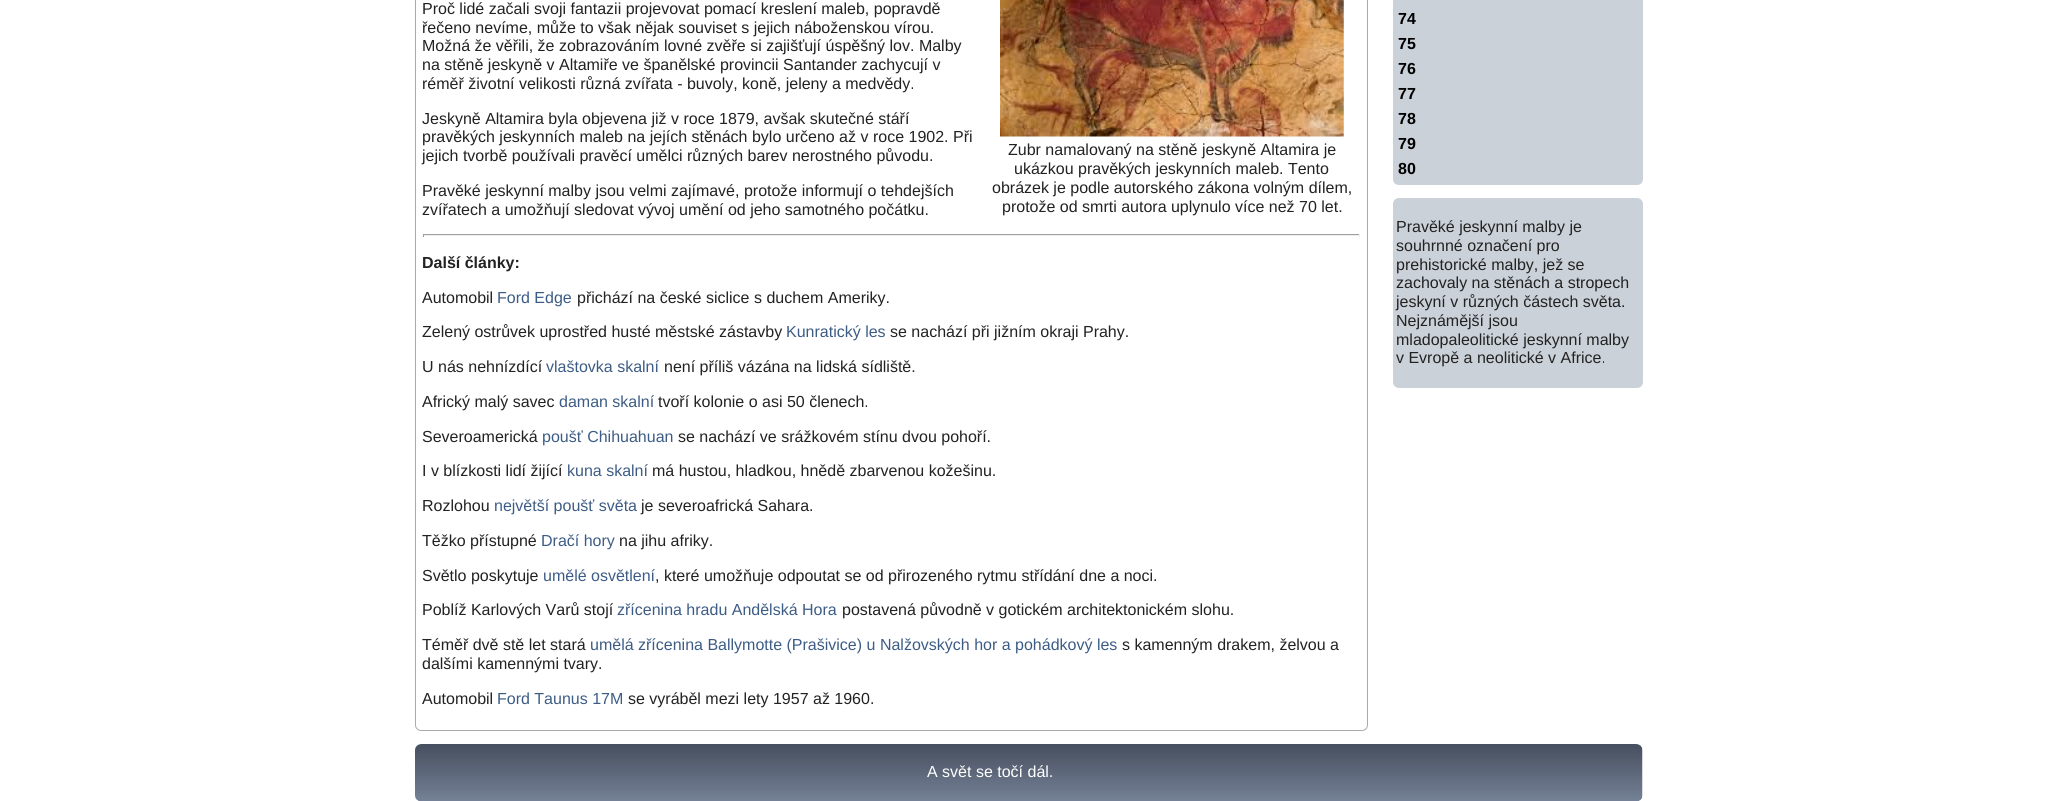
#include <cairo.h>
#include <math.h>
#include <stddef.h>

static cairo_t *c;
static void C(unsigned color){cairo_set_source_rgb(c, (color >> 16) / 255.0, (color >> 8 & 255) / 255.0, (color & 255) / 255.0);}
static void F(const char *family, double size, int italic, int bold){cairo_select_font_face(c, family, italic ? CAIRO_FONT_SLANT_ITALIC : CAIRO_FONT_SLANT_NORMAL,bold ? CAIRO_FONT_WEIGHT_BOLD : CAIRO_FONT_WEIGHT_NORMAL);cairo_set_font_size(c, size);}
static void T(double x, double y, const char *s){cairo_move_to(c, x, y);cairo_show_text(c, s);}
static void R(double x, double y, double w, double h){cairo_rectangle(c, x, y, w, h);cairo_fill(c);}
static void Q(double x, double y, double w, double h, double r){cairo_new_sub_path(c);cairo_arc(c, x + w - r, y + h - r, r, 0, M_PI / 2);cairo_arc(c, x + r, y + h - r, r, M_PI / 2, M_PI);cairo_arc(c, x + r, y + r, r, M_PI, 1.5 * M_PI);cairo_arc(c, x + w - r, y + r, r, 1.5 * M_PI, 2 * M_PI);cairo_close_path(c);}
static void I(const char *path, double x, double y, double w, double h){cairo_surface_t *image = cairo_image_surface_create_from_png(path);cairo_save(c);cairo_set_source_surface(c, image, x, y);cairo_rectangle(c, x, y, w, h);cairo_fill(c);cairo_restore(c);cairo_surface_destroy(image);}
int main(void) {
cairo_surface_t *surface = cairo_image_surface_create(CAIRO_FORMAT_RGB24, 2056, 801);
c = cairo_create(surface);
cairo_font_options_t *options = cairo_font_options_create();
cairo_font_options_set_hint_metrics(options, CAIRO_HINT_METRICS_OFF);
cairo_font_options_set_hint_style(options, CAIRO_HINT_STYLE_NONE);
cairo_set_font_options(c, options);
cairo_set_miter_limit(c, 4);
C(0xffffff);
cairo_paint(c);
Q(415.5,-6.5,952,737,5.5);
C(0xaaaaaa);
cairo_set_line_width(c,1);
cairo_stroke(c);
F("Liberation Sans",16,0,0);
C(0x222222);
T(422,14,"Proč lidé začali svoji fantazii projevovat pomací kreslení maleb, popravdě");
T(422,33,"řečeno nevíme, může to však nějak souviset s jejich náboženskou vírou.");
T(422,51,"Možná že věřili, že zobrazováním lovné zvěře si zajišťují úspěšný lov. Malby");
T(422,70,"na stěně jeskyně v Altamiře ve španělské provincii Santander zachycují v");
T(422,89,"réměř životní velikosti různá zvířata - buvoly, koně, jeleny a medvědy.");
T(422,124,"Jeskyně Altamira byla objevena již v roce 1879, avšak skutečné stáří");
T(422,142,"pravěkých jeskynních maleb na jejích stěnách bylo určeno až v roce 1902. Při");
T(422,161,"jejich tvorbě používali pravěcí umělci různých barev nerostného původu.");
I("1.png",1000,0,344,137);
T(1008,155,"Zubr namalovaný na stěně jeskyně Altamira je");
T(1014,174,"ukázkou pravěkých jeskynních maleb. Tento");
T(992,193,"obrázek je podle autorského zákona volným dílem,");
T(1002,212,"protože od smrti autora uplynulo více než 70 let.");
T(422,196,"Pravěké jeskynní malby jsou velmi zajímavé, protože informují o tehdejších");
T(422,215,"zvířatech a umožňují sledovat vývoj umění od jeho samotného počátku.");
C(0x9f9f9f);
R(423,234,937,1);
C(0xeeeeee);
R(1359,234,1,3);
R(423,235,937,1);
C(0x9f9f9f);
R(423,234,1,3);
F("Liberation Sans",16,0,1);
C(0x222222);
T(422,268,"Další články:");
F("Liberation Sans",16,0,0);
T(422,303,"Automobil");
C(0x3d5c85);
T(497,303,"Ford Edge");
C(0x222222);
T(577,303,"přichází na české siclice s duchem Ameriky.");
T(422,337,"Zelený ostrůvek uprostřed husté městské zástavby");
C(0x3d5c85);
T(786,337,"Kunratický les");
C(0x222222);
T(890,337,"se nachází při jižním okraji Prahy.");
T(422,372,"U nás nehnízdící");
C(0x3d5c85);
T(546,372,"vlaštovka skalní");
C(0x222222);
T(664,372,"není příliš vázána na lidská sídliště.");
T(422,407,"Africký malý savec");
C(0x3d5c85);
T(559,407,"daman skalní");
C(0x222222);
T(658,407,"tvoří kolonie o asi 50 členech.");
T(422,442,"Severoamerická");
C(0x3d5c85);
T(542,442,"poušť Chihuahuan");
C(0x222222);
T(678,442,"se nachází ve srážkovém stínu dvou pohoří.");
T(422,476,"I v blízkosti lidí žijící");
C(0x3d5c85);
T(567,476,"kuna skalní");
C(0x222222);
T(652,476,"má hustou, hladkou, hnědě zbarvenou kožešinu.");
T(422,511,"Rozlohou");
C(0x3d5c85);
T(494,511,"největší poušť světa");
C(0x222222);
T(641,511,"je severoafrická Sahara.");
T(422,546,"Těžko přístupné");
C(0x3d5c85);
T(541,546,"Dračí hory");
C(0x222222);
T(619,546,"na jihu afriky.");
T(422,581,"Světlo poskytuje");
C(0x3d5c85);
T(543,581,"umělé osvětlení");
C(0x222222);
T(655,581,", které umožňuje odpoutat se od přirozeného rytmu střídání dne a noci.");
T(422,615,"Poblíž Karlových Varů stojí");
C(0x3d5c85);
T(617,615,"zřícenina hradu Andělská Hora");
C(0x222222);
T(842,615,"postavená původně v gotickém architektonickém slohu.");
T(422,650,"Téměř dvě stě let stará");
C(0x3d5c85);
T(590,650,"umělá zřícenina Ballymotte (Prašivice) u Nalžovských hor a pohádkový les");
C(0x222222);
T(1122,650,"s kamenným drakem, želvou a");
T(422,669,"dalšími kamennými tvary.");
T(422,704,"Automobil");
C(0x3d5c85);
T(497,704,"Ford Taunus 17M");
C(0x222222);
T(628,704,"se vyráběl mezi lety 1957 až 1960.");
C(0xcbd1d8);
cairo_new_path(c);
cairo_move_to(c,1393,-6);
cairo_line_to(c,1643,-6);
cairo_line_to(c,1643,179);
cairo_curve_to(c,1643,182.5,1640.5,185,1637,185);
cairo_line_to(c,1399,185);
cairo_curve_to(c,1395.5,185,1393,182.5,1393,179);
cairo_close_path(c);
cairo_fill(c);
F("Liberation Sans",16,0,1);
C(0x000000);
T(1398,24,"74");
T(1398,49,"75");
T(1398,74,"76");
T(1398,99,"77");
T(1398,124,"78");
T(1398,149,"79");
T(1398,174,"80");
C(0xcbd1d8);
Q(1393,198,250,190,6);
cairo_fill(c);
F("Liberation Sans",16,0,0);
C(0x222222);
T(1396,232,"Pravěké jeskynní malby je");
T(1396,251,"souhrnné označení pro");
T(1396,270,"prehistorické malby, jež se");
T(1396,288,"zachovaly na stěnách a stropech");
T(1396,307,"jeskyní v různých částech světa.");
T(1396,326,"Nejznámější jsou");
T(1396,345,"mladopaleolitické jeskynní malby");
T(1396,363,"v Evropě a neolitické v Africe.");
I("2.png",415,744,1228,57);
C(0xffffff);
T(927,777,"A svět se točí dál.");
cairo_surface_write_to_png(surface, "o.png");
cairo_font_options_destroy(options);
cairo_destroy(c);
cairo_surface_destroy(surface);
return 0;
}
